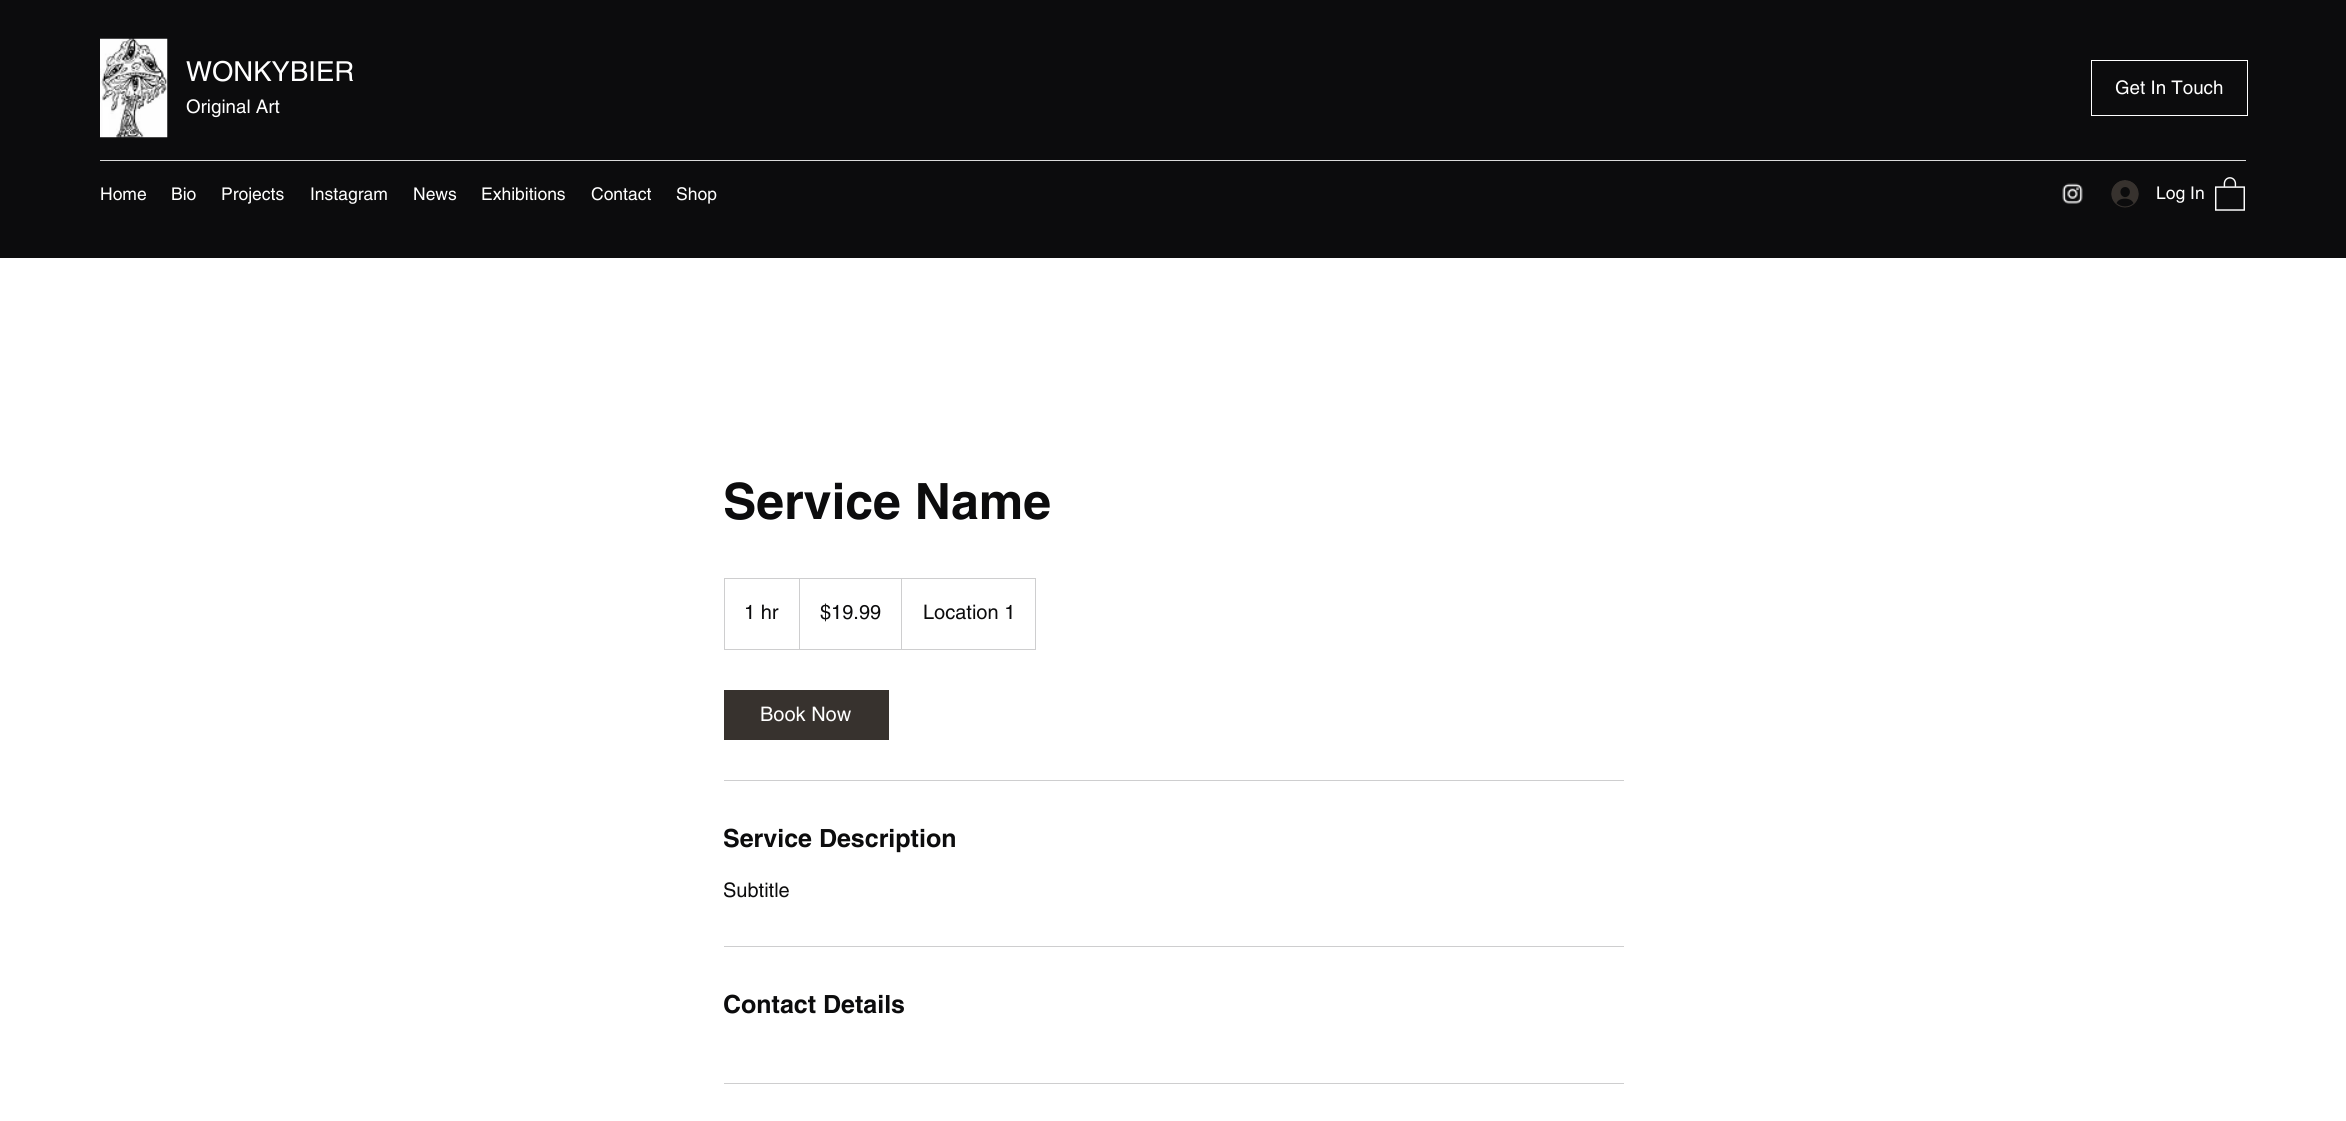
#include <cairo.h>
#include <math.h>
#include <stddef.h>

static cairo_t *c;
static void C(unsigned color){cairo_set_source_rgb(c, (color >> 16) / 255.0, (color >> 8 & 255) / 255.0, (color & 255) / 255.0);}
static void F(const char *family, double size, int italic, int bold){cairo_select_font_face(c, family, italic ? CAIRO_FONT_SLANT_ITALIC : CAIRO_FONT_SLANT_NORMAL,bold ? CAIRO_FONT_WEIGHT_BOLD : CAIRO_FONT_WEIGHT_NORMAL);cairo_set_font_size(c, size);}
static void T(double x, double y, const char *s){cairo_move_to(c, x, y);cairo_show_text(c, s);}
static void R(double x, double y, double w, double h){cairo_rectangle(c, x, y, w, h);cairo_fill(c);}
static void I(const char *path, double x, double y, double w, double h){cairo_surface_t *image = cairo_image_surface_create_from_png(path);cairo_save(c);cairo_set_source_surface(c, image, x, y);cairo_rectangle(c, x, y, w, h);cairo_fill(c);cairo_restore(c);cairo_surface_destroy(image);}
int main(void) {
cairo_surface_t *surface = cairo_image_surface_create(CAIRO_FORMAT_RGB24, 2346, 1121);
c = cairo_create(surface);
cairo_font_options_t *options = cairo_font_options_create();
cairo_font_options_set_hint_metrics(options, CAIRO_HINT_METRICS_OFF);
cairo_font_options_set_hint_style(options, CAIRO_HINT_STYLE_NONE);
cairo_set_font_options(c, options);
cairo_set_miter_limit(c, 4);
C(0xffffff);
cairo_paint(c);
C(0x0c0c0d);
R(0,0,2346,258);
I("1.png",100,38,68,100);
F("helvetica",27.5,0,0);
C(0xffffff);
T(186,81,"WONKYBIER");
F("helvetica",18.75,0,0);
T(186,113,"Original Art");
cairo_rectangle(c,2091.5,60.5,156,55);
cairo_set_line_width(c,1);
cairo_stroke(c);
T(2115,94,"Get In Touch");
C(0xdbdbdb);
R(100,160,2146,1);
F("helvetica",17.5,0,0);
C(0xffffff);
T(100,200,"Home");
T(171,200,"Bio");
T(221,200,"Projects");
T(310,200,"Instagram");
T(413,200,"News");
T(481,200,"Exhibitions");
T(591,200,"Contact");
T(676,200,"Shop");
I("2.png",2062,183,21,21);
I("3.png",2111,180,28,28);
T(2156,199,"Log In");
I("4.png",2215,177,30,34);
F("helvetica",50,0,1);
C(0x0c0c0d);
T(723,519,"Service Name");
cairo_rectangle(c,724.5,578.5,311,71);
C(0xcececf);
cairo_stroke(c);
F("helvetica",20,0,0);
C(0x0c0c0d);
T(744,619,"1 hr");
C(0xcececf);
cairo_new_path(c);
cairo_move_to(c,799,649);
cairo_line_to(c,799,578);
cairo_line_to(c,800,579);
cairo_line_to(c,800,649);
cairo_close_path(c);
cairo_fill(c);
C(0x0c0c0d);
T(820,619,"$19.99");
C(0xcececf);
cairo_new_path(c);
cairo_move_to(c,901,649);
cairo_line_to(c,901,578);
cairo_line_to(c,902,579);
cairo_line_to(c,902,649);
cairo_close_path(c);
cairo_fill(c);
C(0x0c0c0d);
T(923,619,"Location 1");
C(0x37322e);
R(724,690,165,50);
C(0xffffff);
T(760,721,"Book Now");
C(0xcececf);
R(724,780,900,1);
F("helvetica",25,0,1);
C(0x0c0c0d);
T(723,847,"Service Description");
F("helvetica",20,0,0);
T(723,897,"Subtitle");
C(0xcececf);
R(724,946,900,1);
F("helvetica",25,0,1);
C(0x0c0c0d);
T(723,1013,"Contact Details");
C(0xcececf);
R(724,1083,900,1);
cairo_surface_write_to_png(surface, "o.png");
cairo_font_options_destroy(options);
cairo_destroy(c);
cairo_surface_destroy(surface);
return 0;
}
